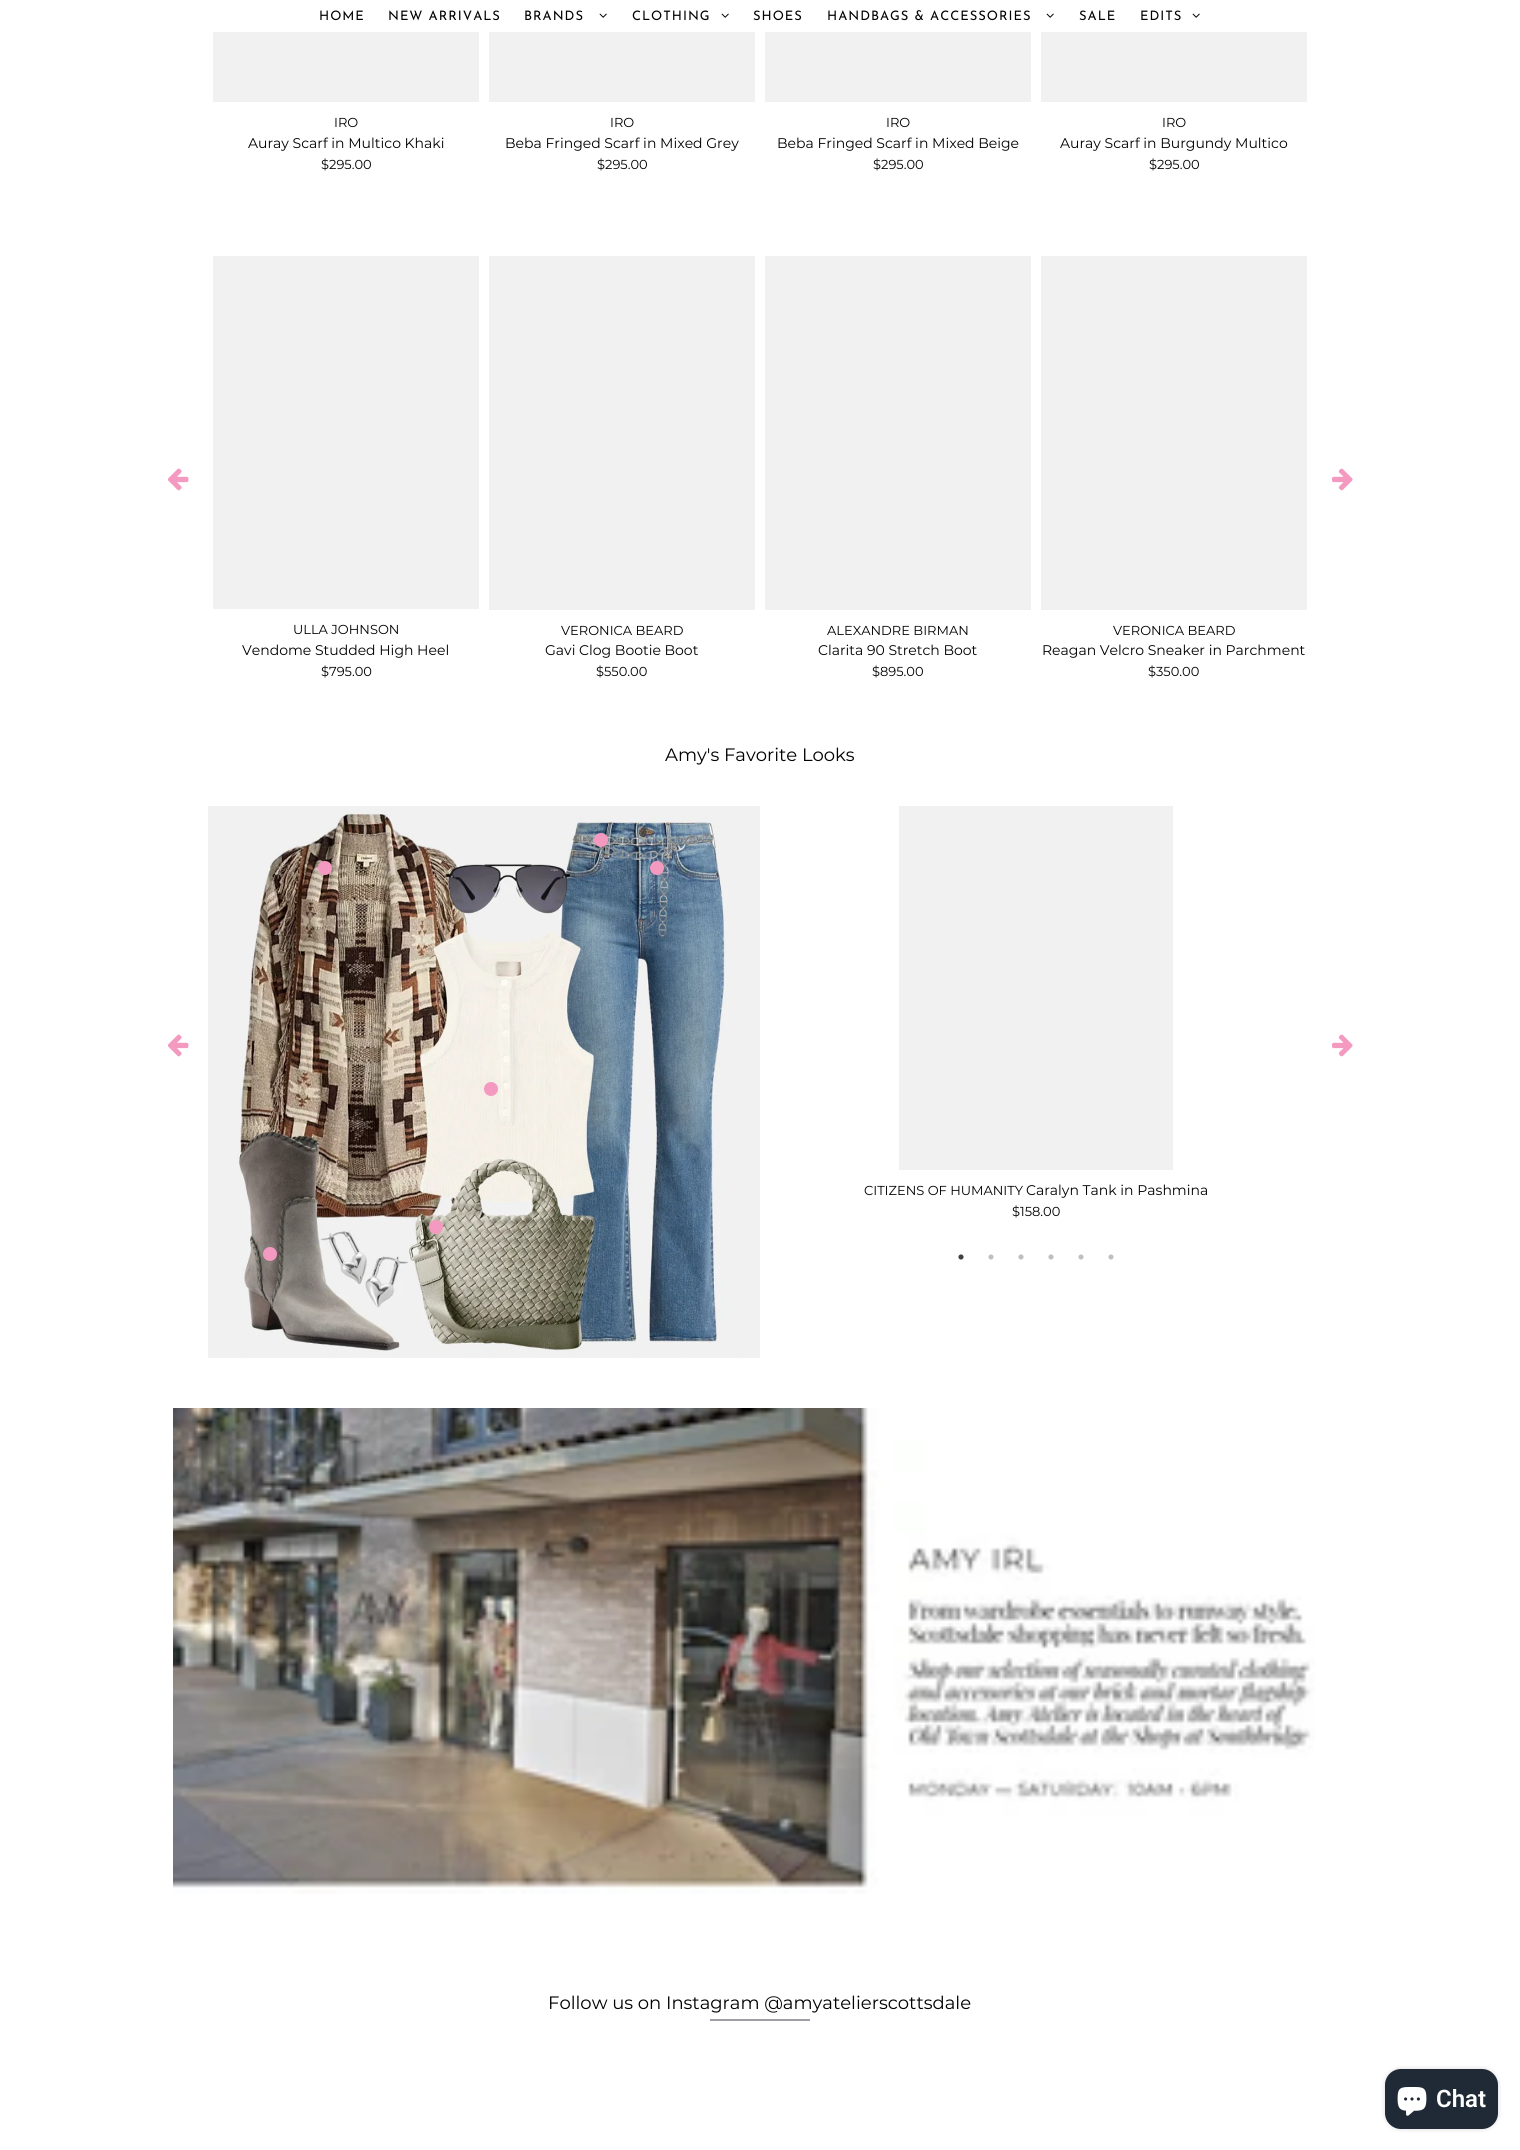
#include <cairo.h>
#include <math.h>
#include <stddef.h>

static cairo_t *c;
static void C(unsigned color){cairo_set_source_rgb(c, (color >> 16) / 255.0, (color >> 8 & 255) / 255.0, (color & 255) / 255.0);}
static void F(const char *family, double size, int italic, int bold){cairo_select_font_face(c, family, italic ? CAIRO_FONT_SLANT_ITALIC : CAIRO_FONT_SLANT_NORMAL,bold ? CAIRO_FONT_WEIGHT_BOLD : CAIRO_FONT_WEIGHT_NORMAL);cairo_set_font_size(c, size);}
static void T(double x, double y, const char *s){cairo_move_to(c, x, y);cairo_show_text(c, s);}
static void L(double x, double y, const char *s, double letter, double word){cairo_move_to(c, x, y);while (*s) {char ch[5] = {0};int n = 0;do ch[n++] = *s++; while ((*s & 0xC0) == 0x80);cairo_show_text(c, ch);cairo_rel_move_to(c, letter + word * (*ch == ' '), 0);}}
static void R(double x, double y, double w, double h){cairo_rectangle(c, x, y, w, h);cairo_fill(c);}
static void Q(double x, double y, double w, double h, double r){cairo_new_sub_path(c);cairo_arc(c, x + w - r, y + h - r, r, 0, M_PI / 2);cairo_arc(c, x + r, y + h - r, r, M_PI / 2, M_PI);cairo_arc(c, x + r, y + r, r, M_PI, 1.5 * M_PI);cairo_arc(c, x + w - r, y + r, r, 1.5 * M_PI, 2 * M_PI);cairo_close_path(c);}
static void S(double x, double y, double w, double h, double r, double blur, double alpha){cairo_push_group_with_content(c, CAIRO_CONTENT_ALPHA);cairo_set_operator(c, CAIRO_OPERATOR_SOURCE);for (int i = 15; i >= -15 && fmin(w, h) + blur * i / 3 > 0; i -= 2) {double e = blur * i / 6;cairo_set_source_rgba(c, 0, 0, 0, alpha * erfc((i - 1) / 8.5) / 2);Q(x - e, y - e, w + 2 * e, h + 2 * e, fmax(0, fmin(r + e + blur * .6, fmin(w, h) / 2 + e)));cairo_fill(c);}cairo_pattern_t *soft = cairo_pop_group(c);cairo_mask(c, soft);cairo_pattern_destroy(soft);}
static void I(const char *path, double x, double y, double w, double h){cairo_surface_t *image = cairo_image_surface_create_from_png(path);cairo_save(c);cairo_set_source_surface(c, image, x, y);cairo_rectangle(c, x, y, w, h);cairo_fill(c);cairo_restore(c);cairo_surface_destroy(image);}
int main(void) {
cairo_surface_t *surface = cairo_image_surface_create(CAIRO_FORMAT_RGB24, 1520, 2150);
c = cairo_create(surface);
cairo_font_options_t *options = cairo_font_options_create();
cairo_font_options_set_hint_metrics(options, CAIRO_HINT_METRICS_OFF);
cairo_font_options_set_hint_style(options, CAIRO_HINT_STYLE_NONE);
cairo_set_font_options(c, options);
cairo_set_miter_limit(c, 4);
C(0xffffff);
cairo_paint(c);
F("Josefin Sans",13,0,0);
C(0x000000);
L(319,20,"HOME",1,0);
L(388,20,"NEW ARRIVALS",1,0);
L(524,20,"BRANDS",1,0);
I("1.png",599,13,8,5);
L(632,20,"CLOTHING",1,0);
I("1.png",721,13,8,5);
L(753,20,"SHOES",1,0);
L(827,20,"HANDBAGS & ACCESSORIES",1,0);
I("1.png",1046,13,8,5);
L(1079,20,"SALE",1,0);
L(1140,20,"EDITS",1,0);
I("1.png",1192,13,8,5);
C(0xf1f1f1);
R(213,32,266,70);
F("Montserrat",13,0,0);
C(0x000000);
T(334,127,"IRO");
F("Montserrat",14,0,0);
T(248,148,"Auray Scarf in Multico Khaki");
F("Montserrat",13,0,0);
T(321,169,"$295.00");
C(0xf1f1f1);
R(489,32,266,70);
C(0x000000);
T(610,127,"IRO");
F("Montserrat",14,0,0);
T(505,148,"Beba Fringed Scarf in Mixed Grey");
F("Montserrat",13,0,0);
T(597,169,"$295.00");
C(0xf1f1f1);
R(765,32,266,70);
C(0x000000);
T(886,127,"IRO");
F("Montserrat",14,0,0);
T(777,148,"Beba Fringed Scarf in Mixed Beige");
F("Montserrat",13,0,0);
T(873,169,"$295.00");
C(0xf1f1f1);
R(1041,32,266,70);
C(0x000000);
T(1162,127,"IRO");
F("Montserrat",14,0,0);
T(1060,148,"Auray Scarf in Burgundy Multico");
F("Montserrat",13,0,0);
T(1149,169,"$295.00");
I("2.png",167,468,22,23);
I("3.png",1332,468,21,23);
C(0xf1f1f1);
R(213,256,266,353);
C(0x000000);
T(293,634,"ULLA JOHNSON");
F("Montserrat",14,0,0);
T(242,655,"Vendome Studded High Heel");
F("Montserrat",13,0,0);
T(321,676,"$795.00");
C(0xf1f1f1);
R(489,256,266,354);
C(0x000000);
T(561,635,"VERONICA BEARD");
F("Montserrat",14,0,0);
T(545,655,"Gavi Clog Bootie Boot");
F("Montserrat",13,0,0);
T(596,676,"$550.00");
C(0xf1f1f1);
R(765,256,266,354);
C(0x000000);
T(827,635,"ALEXANDRE BIRMAN");
F("Montserrat",14,0,0);
T(818,655,"Clarita 90 Stretch Boot");
F("Montserrat",13,0,0);
T(872,676,"$895.00");
C(0xf1f1f1);
R(1041,256,266,354);
C(0x000000);
T(1113,635,"VERONICA BEARD");
F("Montserrat",14,0,0);
T(1042,655,"Reagan Velcro Sneaker in Parchment");
F("Montserrat",13,0,0);
T(1148,676,"$350.00");
F("Montserrat",18,0,0);
T(665,761,"Amy's Favorite Looks");
I("2.png",167,1034,22,23);
I("3.png",1332,1034,21,23);
I("4.png",208,806,552,552);
C(0xf49ac1);
cairo_arc(c,601,840,7,0,2 * M_PI);
cairo_fill(c);
cairo_arc(c,325,868,7,0,2 * M_PI);
cairo_fill(c);
cairo_arc(c,657,868,7,0,2 * M_PI);
cairo_fill(c);
cairo_arc(c,491,1089,7,0,2 * M_PI);
cairo_fill(c);
cairo_arc(c,436,1227,7,0,2 * M_PI);
cairo_fill(c);
cairo_arc(c,270,1254,7,0,2 * M_PI);
cairo_fill(c);
C(0xf1f1f1);
R(899,806,274,364);
F("Montserrat",13,0,0);
C(0x000000);
T(864,1195,"CITIZENS OF HUMANITY");
F("Montserrat",14,0,0);
T(1026,1195,"Caralyn Tank in Pashmina");
F("Montserrat",13,0,0);
T(1012,1216,"$158.00");
I("5.png",958,1254,6,6);
I("6.png",988,1254,6,6);
I("6.png",1018,1254,6,6);
I("6.png",1048,1254,6,6);
I("6.png",1078,1254,6,6);
I("6.png",1108,1254,6,6);
I("7.png",173,1408,1142,486);
F("Montserrat",18,0,0);
T(548,2009,"Follow us on Instagram @amyatelierscottsdale");
C(0x9e9ea4);
R(710,2019,100,2);
C(0x000000);
S(1385,2069,113,60,16,2.5,.15);
C(0x202a36);
Q(1385,2069,113,60,16);
cairo_fill(c);
I("8.png",1397,2087,30,29);
F("Roboto SemiBold",24,0,0);
C(0xffffff);
T(1436,2107,"Chat");
cairo_surface_write_to_png(surface, "o.png");
cairo_font_options_destroy(options);
cairo_destroy(c);
cairo_surface_destroy(surface);
return 0;
}
